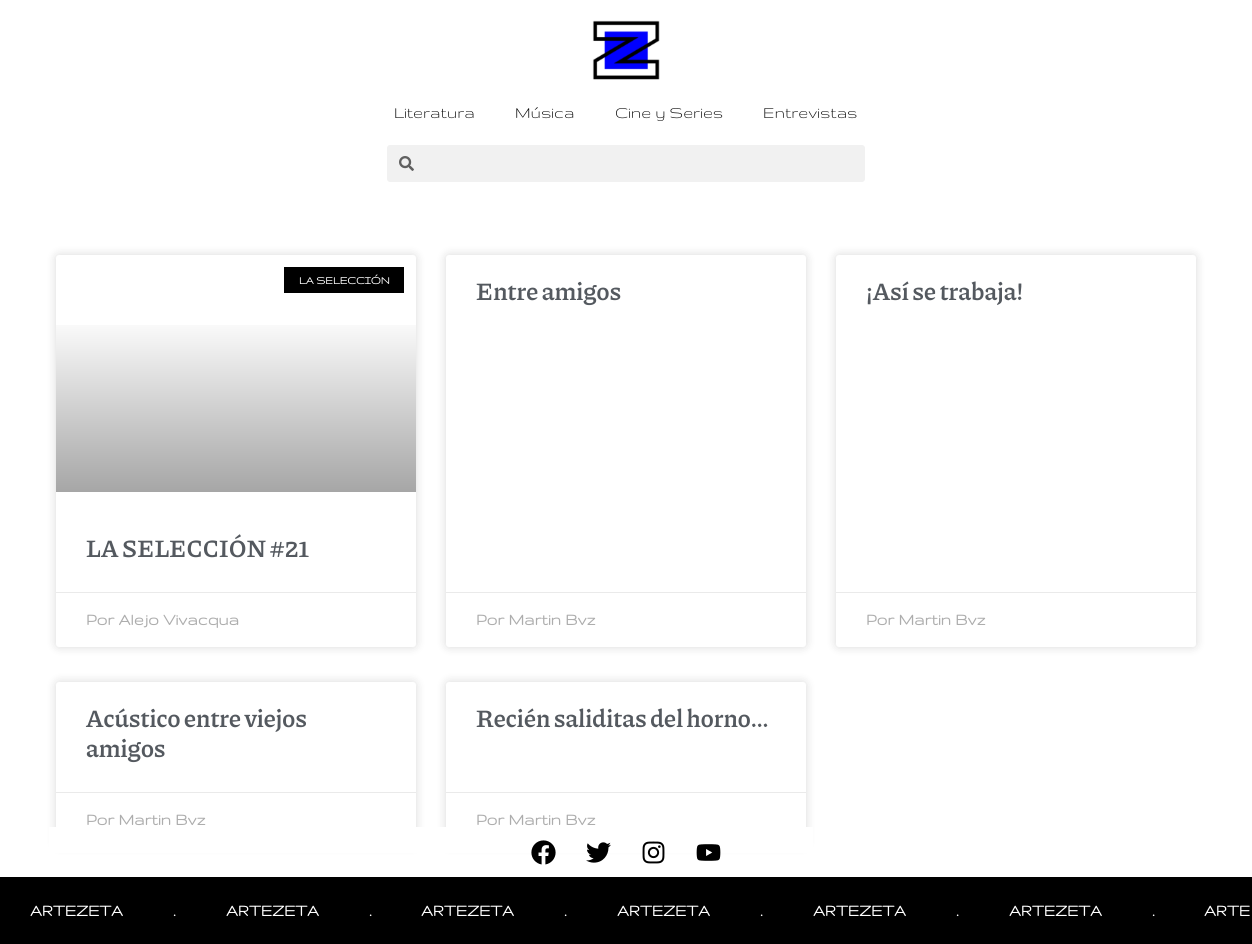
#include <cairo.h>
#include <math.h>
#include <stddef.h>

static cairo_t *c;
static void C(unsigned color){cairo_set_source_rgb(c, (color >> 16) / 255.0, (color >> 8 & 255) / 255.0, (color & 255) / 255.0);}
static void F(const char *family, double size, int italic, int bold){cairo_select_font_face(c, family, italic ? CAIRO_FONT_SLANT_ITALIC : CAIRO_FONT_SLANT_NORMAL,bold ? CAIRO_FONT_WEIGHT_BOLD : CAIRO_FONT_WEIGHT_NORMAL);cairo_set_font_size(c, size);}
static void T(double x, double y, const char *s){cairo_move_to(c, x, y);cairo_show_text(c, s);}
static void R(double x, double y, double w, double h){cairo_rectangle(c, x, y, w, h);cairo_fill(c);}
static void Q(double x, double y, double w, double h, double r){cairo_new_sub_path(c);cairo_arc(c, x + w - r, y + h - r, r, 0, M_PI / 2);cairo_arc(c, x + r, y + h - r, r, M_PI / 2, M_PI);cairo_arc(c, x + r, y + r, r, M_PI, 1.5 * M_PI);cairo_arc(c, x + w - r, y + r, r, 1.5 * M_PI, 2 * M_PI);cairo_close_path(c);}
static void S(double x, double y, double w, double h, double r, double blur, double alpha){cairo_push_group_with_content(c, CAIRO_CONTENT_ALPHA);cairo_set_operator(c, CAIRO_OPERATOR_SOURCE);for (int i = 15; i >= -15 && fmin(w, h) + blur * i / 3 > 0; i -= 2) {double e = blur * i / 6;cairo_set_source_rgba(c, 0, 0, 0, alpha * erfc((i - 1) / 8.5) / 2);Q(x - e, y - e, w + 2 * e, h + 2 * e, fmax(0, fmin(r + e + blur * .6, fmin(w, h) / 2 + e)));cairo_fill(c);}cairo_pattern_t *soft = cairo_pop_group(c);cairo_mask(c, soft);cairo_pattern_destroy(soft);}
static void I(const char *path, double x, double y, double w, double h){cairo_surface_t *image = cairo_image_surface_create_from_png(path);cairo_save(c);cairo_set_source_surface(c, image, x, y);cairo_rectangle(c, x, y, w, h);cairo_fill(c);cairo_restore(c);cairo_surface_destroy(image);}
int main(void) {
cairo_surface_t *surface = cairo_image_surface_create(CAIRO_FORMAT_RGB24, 1252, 944);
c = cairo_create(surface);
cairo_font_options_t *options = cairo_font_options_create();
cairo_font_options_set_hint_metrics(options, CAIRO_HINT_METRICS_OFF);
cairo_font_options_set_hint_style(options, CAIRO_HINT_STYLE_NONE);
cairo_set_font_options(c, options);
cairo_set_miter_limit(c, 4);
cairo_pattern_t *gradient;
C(0xffffff);
cairo_paint(c);
I("1.png",592,20,68,60);
F("Gruppo",18,0,0);
C(0x000000);
T(394,118,"Literatura");
T(515,118,"Música");
T(615,118,"Cine y Series");
T(763,118,"Entrevistas");
C(0xf1f1f1);
Q(387,145,478,37,3);
cairo_fill(c);
I("2.png",399,156,15,15);
C(0x000000);
S(56,255,360,392,3,5,.15);
C(0xffffff);
Q(56,255,360,392,3);
cairo_fill(c);
C(0x000000);
R(284,267,120,26);
F("Gruppo",12,0,1);
C(0xffffff);
T(299,284,"LA SELECCIÓN");
gradient = cairo_pattern_create_linear(236,492,236,255);
cairo_pattern_add_color_stop_rgba(gradient,0,0,0,0,.35);
cairo_pattern_add_color_stop_rgba(gradient,.75,0,0,0,0);
cairo_set_source(c,gradient);
cairo_pattern_destroy(gradient);
R(56,325,360,167);
F("Piazzolla SemiBold",25,0,0);
C(0x54595f);
T(86,557,"LA SELECCIÓN #21");
C(0xeaeaea);
R(56,592,360,1);
F("Gruppo",18,0,1);
C(0xadadad);
T(86,625,"Por Alejo Vivacqua");
C(0x000000);
S(446,255,360,392,3,5,.15);
C(0xffffff);
Q(446,255,360,392,3);
cairo_fill(c);
F("Piazzolla SemiBold",25,0,0);
C(0x54595f);
T(476,300,"Entre amigos");
C(0xeaeaea);
R(446,592,360,1);
F("Gruppo",18,0,1);
C(0xadadad);
T(476,625,"Por Martin Bvz");
C(0x000000);
S(836,255,360,392,3,5,.15);
C(0xffffff);
Q(836,255,360,392,3);
cairo_fill(c);
F("Piazzolla SemiBold",25,0,0);
C(0x54595f);
T(866,300,"¡Así se trabaja!");
C(0xeaeaea);
R(836,592,360,1);
F("Gruppo",18,0,1);
C(0xadadad);
T(866,625,"Por Martin Bvz");
C(0x000000);
S(56,682,360,164,3,5,.15);
C(0xffffff);
Q(56,682,360,164,3);
cairo_fill(c);
F("Piazzolla SemiBold",25,0,0);
C(0x54595f);
T(86,727,"Acústico entre viejos");
T(86,757,"amigos");
C(0xeaeaea);
R(56,792,360,1);
F("Gruppo",18,0,1);
C(0xadadad);
T(86,825,"Por Martin Bvz");
C(0x000000);
S(446,682,360,164,3,5,.15);
C(0xffffff);
Q(446,682,360,164,3);
cairo_fill(c);
F("Piazzolla SemiBold",25,0,0);
C(0x54595f);
T(476,727,"Recién saliditas del horno…");
C(0xeaeaea);
R(446,792,360,1);
F("Gruppo",18,0,1);
C(0xadadad);
T(476,825,"Por Martin Bvz");
C(0xffffff);
R(49,827,764,26);
I("3.png",531,840,25,25);
I("4.png",586,842,25,21);
I("5.png",642,841,23,23);
I("6.png",696,844,25,17);
C(0x000000);
R(0,877,1252,67);
C(0xffffff);
T(30,916,"ARTEZETA");
T(173,916,".");
T(226,916,"ARTEZETA");
T(369,916,".");
T(421,916,"ARTEZETA");
T(564,916,".");
T(617,916,"ARTEZETA");
T(760,916,".");
T(813,916,"ARTEZETA");
T(956,916,".");
T(1009,916,"ARTEZETA");
T(1152,916,".");
T(1204,916,"ARTE");
cairo_surface_write_to_png(surface, "o.png");
cairo_font_options_destroy(options);
cairo_destroy(c);
cairo_surface_destroy(surface);
return 0;
}
